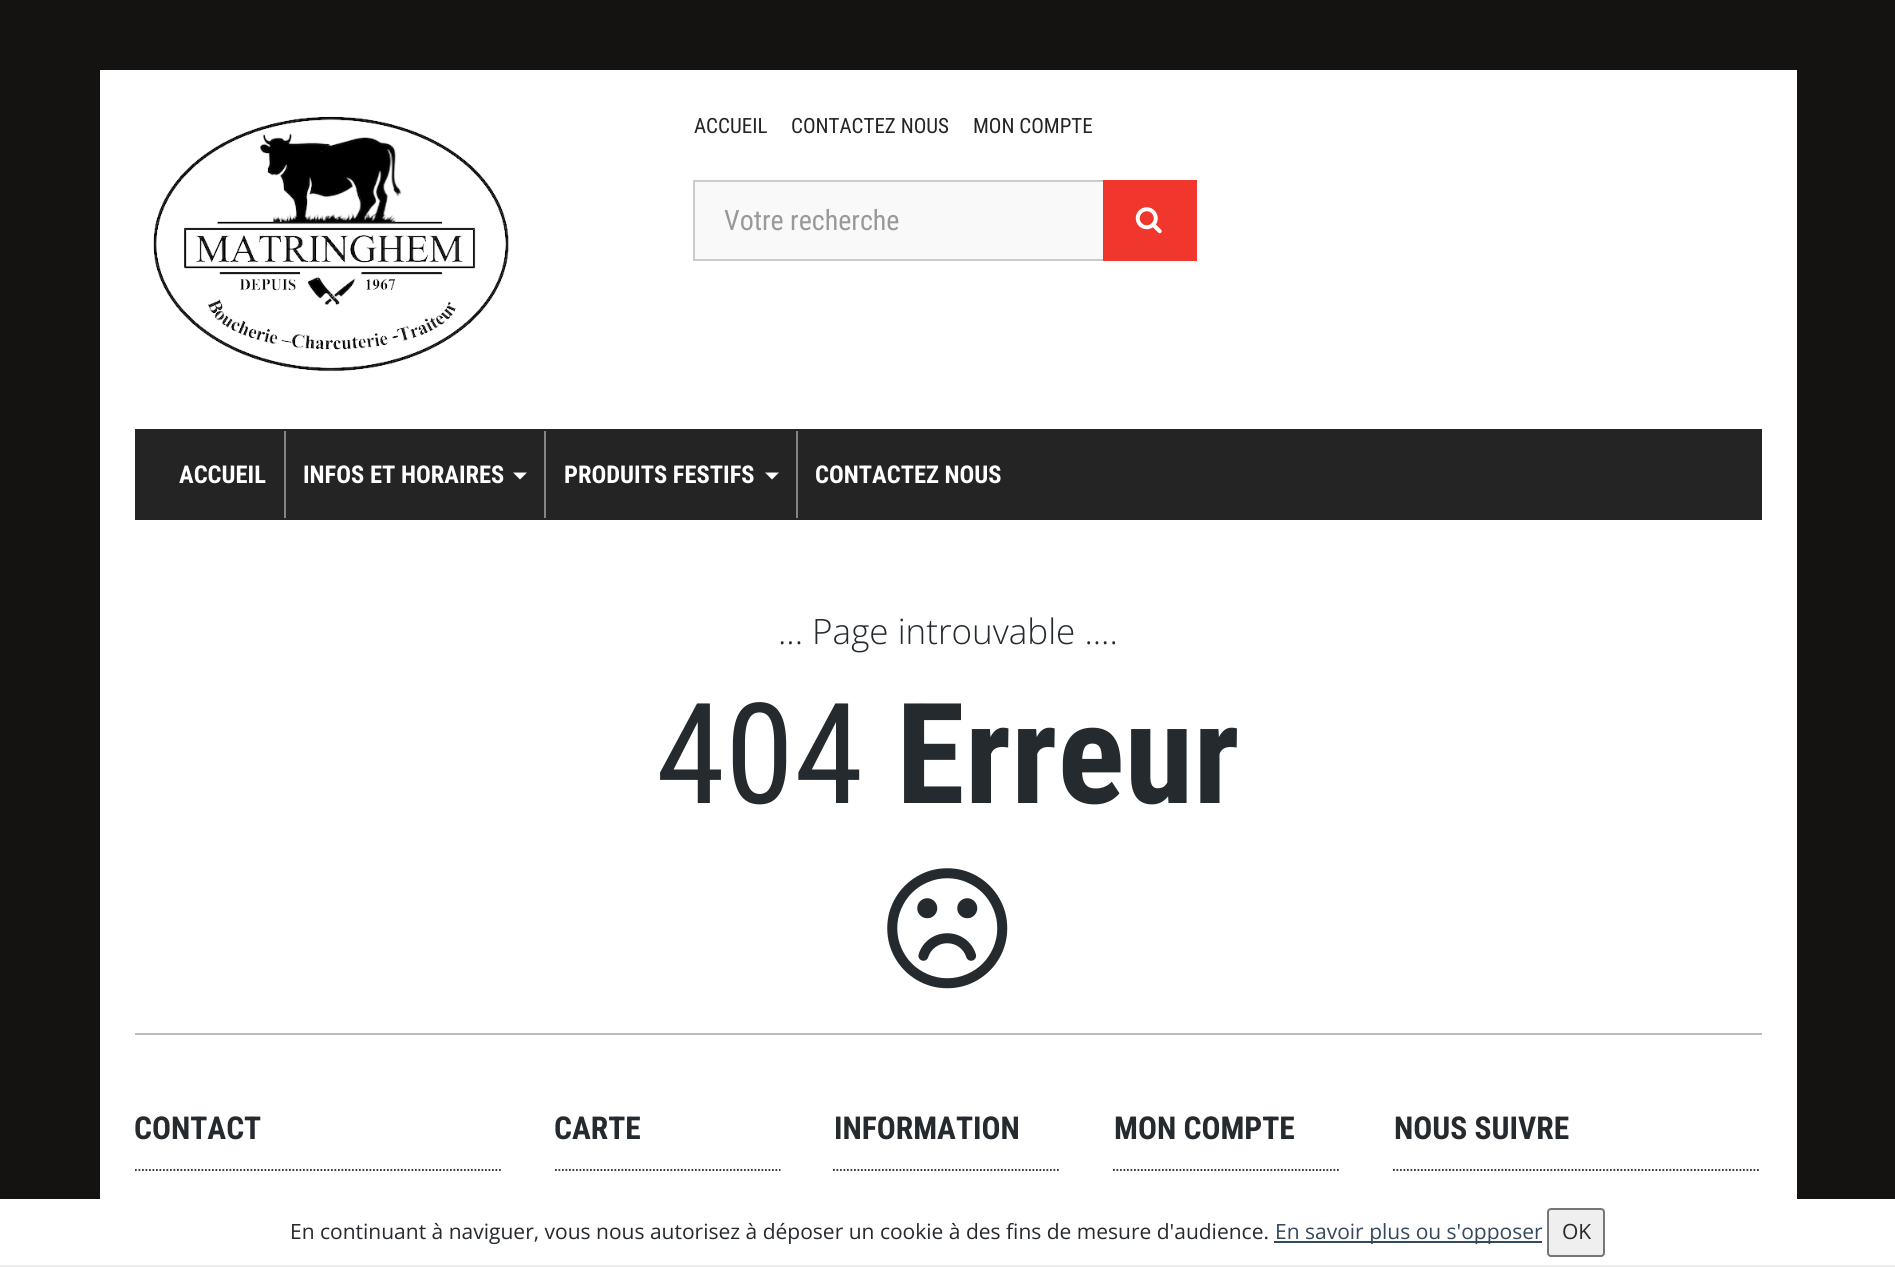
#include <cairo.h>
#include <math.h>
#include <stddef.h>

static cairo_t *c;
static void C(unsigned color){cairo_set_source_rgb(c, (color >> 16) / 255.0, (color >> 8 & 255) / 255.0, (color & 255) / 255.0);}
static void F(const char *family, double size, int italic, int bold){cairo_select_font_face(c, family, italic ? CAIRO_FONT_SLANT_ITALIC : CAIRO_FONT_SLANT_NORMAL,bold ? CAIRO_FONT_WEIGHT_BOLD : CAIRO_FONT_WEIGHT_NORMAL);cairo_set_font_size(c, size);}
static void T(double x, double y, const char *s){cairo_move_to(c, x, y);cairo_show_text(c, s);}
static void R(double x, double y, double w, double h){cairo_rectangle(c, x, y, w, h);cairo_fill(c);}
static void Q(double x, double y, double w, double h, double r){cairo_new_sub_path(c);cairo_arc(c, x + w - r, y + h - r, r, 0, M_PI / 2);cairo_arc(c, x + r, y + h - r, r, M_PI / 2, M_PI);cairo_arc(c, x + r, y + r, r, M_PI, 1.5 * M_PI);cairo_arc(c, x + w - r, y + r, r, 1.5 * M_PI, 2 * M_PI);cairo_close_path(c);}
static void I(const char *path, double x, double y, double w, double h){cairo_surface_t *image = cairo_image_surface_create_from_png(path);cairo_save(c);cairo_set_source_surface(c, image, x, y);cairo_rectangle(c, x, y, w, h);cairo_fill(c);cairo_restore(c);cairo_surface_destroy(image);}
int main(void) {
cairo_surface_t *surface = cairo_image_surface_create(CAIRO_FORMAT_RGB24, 1895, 1267);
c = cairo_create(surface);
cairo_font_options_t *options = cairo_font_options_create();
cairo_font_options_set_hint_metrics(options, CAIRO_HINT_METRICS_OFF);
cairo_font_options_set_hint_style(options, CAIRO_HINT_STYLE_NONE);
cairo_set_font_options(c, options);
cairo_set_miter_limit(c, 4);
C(0x151212);
cairo_paint(c);
C(0xffffff);
R(100,70,1697,1129);
I("1.png",153,116,356,256);
F("Roboto Condensed",21,0,0);
C(0x252424);
T(694,133,"ACCUEIL");
T(791,133,"CONTACTEZ NOUS");
T(973,133,"MON COMPTE");
C(0xf9f9f9);
R(695,182,408,77);
C(0xcbcbcb);
R(693,180,410,2);
R(693,259,410,2);
R(693,180,2,81);
F("Roboto Condensed",28,0,0);
C(0x999999);
T(724,230,"Votre recherche");
C(0xf1372d);
R(1103,180,94,81);
I("2.png",1135,207,27,27);
C(0x252424);
R(135,429,1627,91);
F("Roboto Condensed",24.5,0,1);
C(0xffffff);
T(179,483,"ACCUEIL");
C(0x848484);
R(284,431,2,87);
C(0xffffff);
T(303,483,"INFOS ET HORAIRES");
cairo_new_path(c);
cairo_move_to(c,513,472.5);
cairo_line_to(c,527,472.5);
cairo_line_to(c,520,479.5);
cairo_close_path(c);
cairo_fill(c);
C(0x848484);
R(544,431,2,87);
C(0xffffff);
T(564,483,"PRODUITS FESTIFS");
cairo_new_path(c);
cairo_move_to(c,765,472.5);
cairo_line_to(c,779,472.5);
cairo_line_to(c,772,479.5);
cairo_close_path(c);
cairo_fill(c);
C(0x848484);
R(796,431,2,87);
C(0xffffff);
T(815,483,"CONTACTEZ NOUS");
F("Open Sans Light",35,0,0);
C(0x252a2f);
T(778,644,"... Page introuvable ....");
F("Roboto Condensed",140,0,0);
T(656,803,"404");
F("Roboto Condensed",140,0,1);
T(896,803,"Erreur");
I("3.png",887,868,121,121);
C(0xbcbcbc);
R(135,1033,1627,2);
cairo_new_path(c);
cairo_move_to(c,135,1170);
cairo_line_to(c,502,1170);
C(0x252a2f);
cairo_set_line_width(c,1.8);
cairo_set_dash(c,(double[]){1.75,1.75},2,0);
cairo_stroke(c);
F("Roboto Condensed",31.5,0,1);
T(134,1139,"CONTACT");
cairo_new_path(c);
cairo_move_to(c,555,1170);
cairo_line_to(c,780.5,1170);
cairo_stroke(c);
T(554,1139,"CARTE");
cairo_new_path(c);
cairo_move_to(c,833,1170);
cairo_line_to(c,1060.5,1170);
cairo_stroke(c);
T(834,1139,"INFORMATION");
cairo_new_path(c);
cairo_move_to(c,1113,1170);
cairo_line_to(c,1340.5,1170);
cairo_stroke(c);
T(1114,1139,"MON COMPTE");
cairo_new_path(c);
cairo_move_to(c,1393,1170);
cairo_line_to(c,1760.5,1170);
cairo_stroke(c);
T(1394,1139,"NOUS SUIVRE");
C(0xffffff);
R(0,1199,1895,66);
C(0xeeeeee);
R(0,1265,1895,2);
F("Open Sans",21,0,0);
C(0x252a2f);
T(290,1239,"En continuant à naviguer, vous nous autorisez à déposer un cookie à des fins de mesure d'audience.");
C(0x34495e);
R(1274,1241,268,2);
T(1275,1239,"En savoir plus ou s'opposer");
C(0xefefef);
Q(1548,1209,56,47,3);
cairo_fill_preserve(c);
C(0x767676);
cairo_set_line_width(c,2);
cairo_set_dash(c,NULL,0,0);
cairo_stroke(c);
C(0x252a2f);
T(1562,1239,"OK");
cairo_surface_write_to_png(surface, "o.png");
cairo_font_options_destroy(options);
cairo_destroy(c);
cairo_surface_destroy(surface);
return 0;
}
